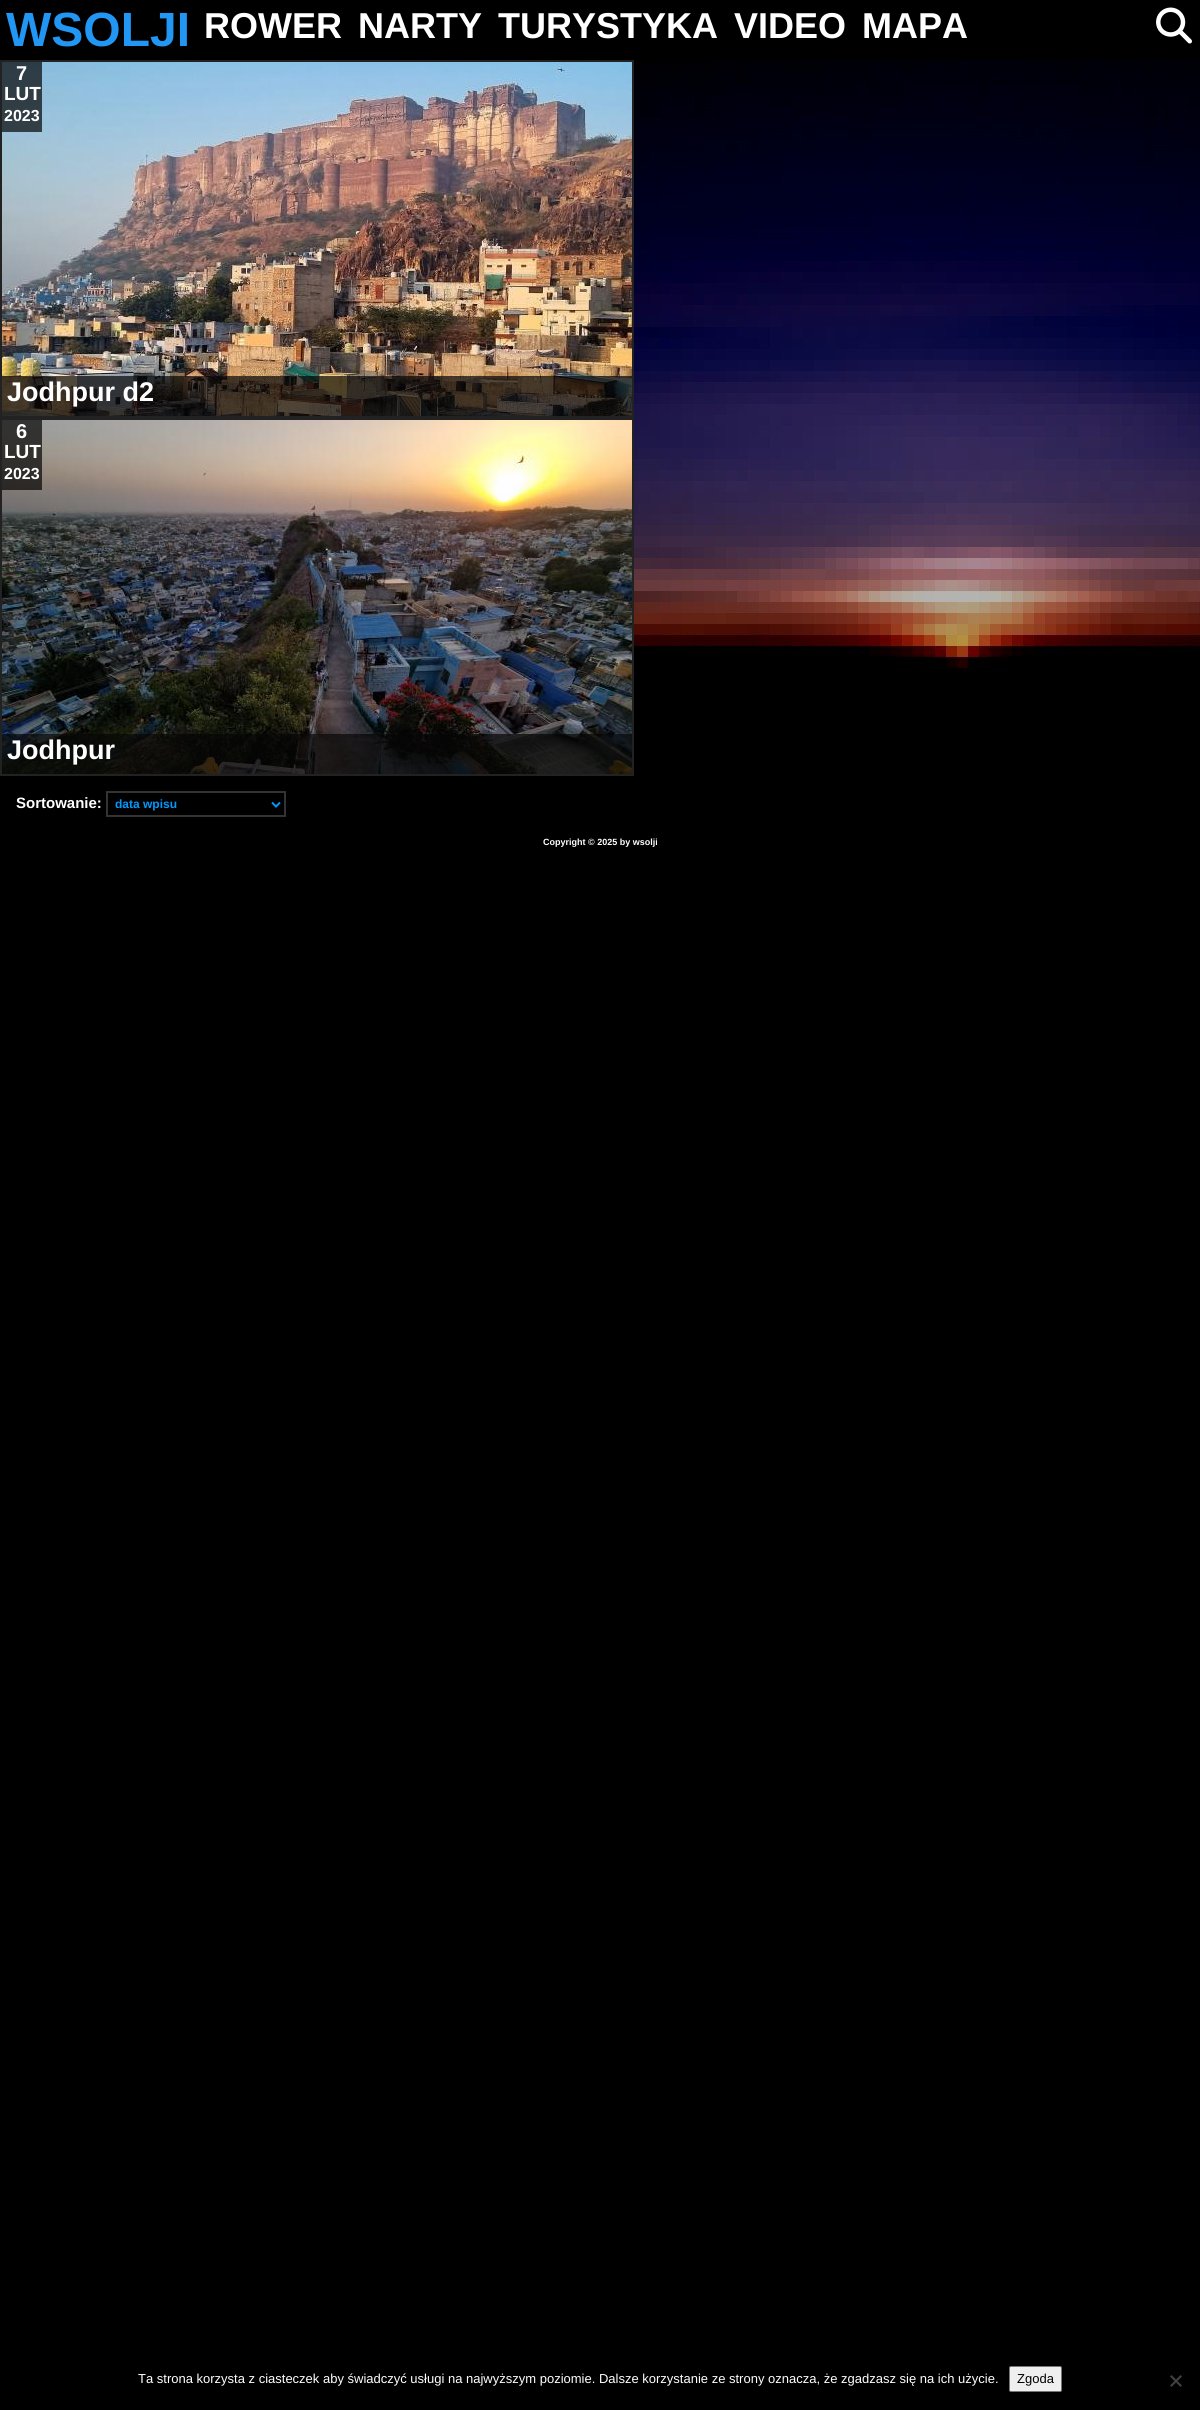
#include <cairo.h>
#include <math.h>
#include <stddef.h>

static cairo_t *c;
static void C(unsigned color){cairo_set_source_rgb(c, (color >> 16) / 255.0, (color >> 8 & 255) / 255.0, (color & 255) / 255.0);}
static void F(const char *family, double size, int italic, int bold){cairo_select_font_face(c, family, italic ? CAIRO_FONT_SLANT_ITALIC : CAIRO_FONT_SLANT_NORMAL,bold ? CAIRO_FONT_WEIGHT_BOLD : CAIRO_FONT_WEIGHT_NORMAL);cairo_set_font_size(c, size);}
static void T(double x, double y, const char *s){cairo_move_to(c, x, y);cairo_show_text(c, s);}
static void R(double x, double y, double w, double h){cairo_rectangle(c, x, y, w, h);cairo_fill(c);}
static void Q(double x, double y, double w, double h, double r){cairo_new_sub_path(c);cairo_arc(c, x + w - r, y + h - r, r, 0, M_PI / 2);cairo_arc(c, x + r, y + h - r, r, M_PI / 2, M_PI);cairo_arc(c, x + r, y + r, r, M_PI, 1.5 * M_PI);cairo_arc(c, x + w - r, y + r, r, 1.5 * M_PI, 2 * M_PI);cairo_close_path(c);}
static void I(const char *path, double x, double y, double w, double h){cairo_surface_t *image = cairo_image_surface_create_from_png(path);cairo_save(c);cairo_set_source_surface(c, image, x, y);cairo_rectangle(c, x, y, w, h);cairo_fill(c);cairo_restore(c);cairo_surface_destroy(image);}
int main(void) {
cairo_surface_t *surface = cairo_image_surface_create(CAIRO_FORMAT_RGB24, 1200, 2410);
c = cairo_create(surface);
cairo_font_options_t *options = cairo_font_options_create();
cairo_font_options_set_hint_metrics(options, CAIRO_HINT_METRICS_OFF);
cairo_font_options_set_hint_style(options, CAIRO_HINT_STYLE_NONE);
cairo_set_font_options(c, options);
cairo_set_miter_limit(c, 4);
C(0x000000);
cairo_paint(c);
I("1.png",634,60,566,612);
F("Liberation Sans",48,0,1);
C(0x2196f3);
T(6,46,"WSOLJI");
F("Liberation Sans",36,0,1);
C(0xffffff);
T(204,38,"ROWER");
T(358,38,"NARTY");
T(498,38,"TURYSTYKA");
T(734,38,"VIDEO");
T(862,38,"MAPA");
I("2.png",1156,7,36,37);
cairo_rectangle(c,1,61,632,356);
C(0x222222);
cairo_stroke(c);
I("3.png",2,62,630,354);
cairo_set_source_rgba(c,0.024,0.024,0.024,0.7);
R(2,62,40,70);
F("Liberation Sans",20,0,1);
C(0xffffff);
T(16,80,"7");
F("Liberation Sans",19,0,1);
T(4,100,"LUT");
F("Liberation Sans",16,0,1);
T(4,121,"2023");
cairo_set_source_rgba(c,0.024,0.024,0.024,0.7);
R(2,376,630,40);
F("Liberation Sans",27,0,1);
C(0xffffff);
T(7,401,"Jodhpur d2");
cairo_rectangle(c,1,419,632,356);
C(0x222222);
cairo_stroke(c);
I("4.png",2,420,630,354);
cairo_set_source_rgba(c,0.024,0.024,0.024,0.7);
R(2,420,40,70);
F("Liberation Sans",20,0,1);
C(0xffffff);
T(16,438,"6");
F("Liberation Sans",19,0,1);
T(4,458,"LUT");
F("Liberation Sans",16,0,1);
T(4,479,"2023");
cairo_set_source_rgba(c,0.024,0.024,0.024,0.7);
R(2,734,630,40);
F("Liberation Sans",27,0,1);
C(0xffffff);
T(7,759,"Jodhpur");
F("Liberation Sans",15,0,1);
T(16,808,"Sortowanie:");
cairo_rectangle(c,107,792,178,24);
C(0x333333);
cairo_stroke(c);
cairo_new_path(c);
cairo_move_to(c,272,802.5);
cairo_line_to(c,276,806.5);
cairo_line_to(c,280,802.5);
C(0x0099ff);
cairo_stroke(c);
F("Liberation Sans",12,0,1);
T(115,808,"data wpisu");
F("Liberation Sans",9,0,1);
C(0xffffff);
T(543,845,"Copyright © 2025 by wsolji");
F("Liberation Sans",13,0,0);
T(138,2383,"Ta strona korzysta z ciasteczek aby świadczyć usługi na najwyższym poziomie. Dalsze korzystanie ze strony oznacza, że zgadzasz się na ich użycie.");
C(0xefefef);
Q(1009.5,2366.5,52,25,1.5);
cairo_fill_preserve(c);
C(0x767676);
cairo_set_line_width(c,1);
cairo_stroke(c);
C(0x000000);
T(1017,2383,"Zgoda");
C(0x404040);
cairo_new_path(c);
cairo_move_to(c,1180.5,2375);
cairo_line_to(c,1182,2376.5);
cairo_line_to(c,1171.5,2387);
cairo_line_to(c,1170,2385.5);
cairo_close_path(c);
cairo_fill(c);
cairo_new_path(c);
cairo_move_to(c,1170,2376.5);
cairo_line_to(c,1171.5,2375);
cairo_line_to(c,1182,2385.5);
cairo_line_to(c,1180.5,2387);
cairo_close_path(c);
cairo_fill(c);
cairo_surface_write_to_png(surface, "o.png");
cairo_font_options_destroy(options);
cairo_destroy(c);
cairo_surface_destroy(surface);
return 0;
}
